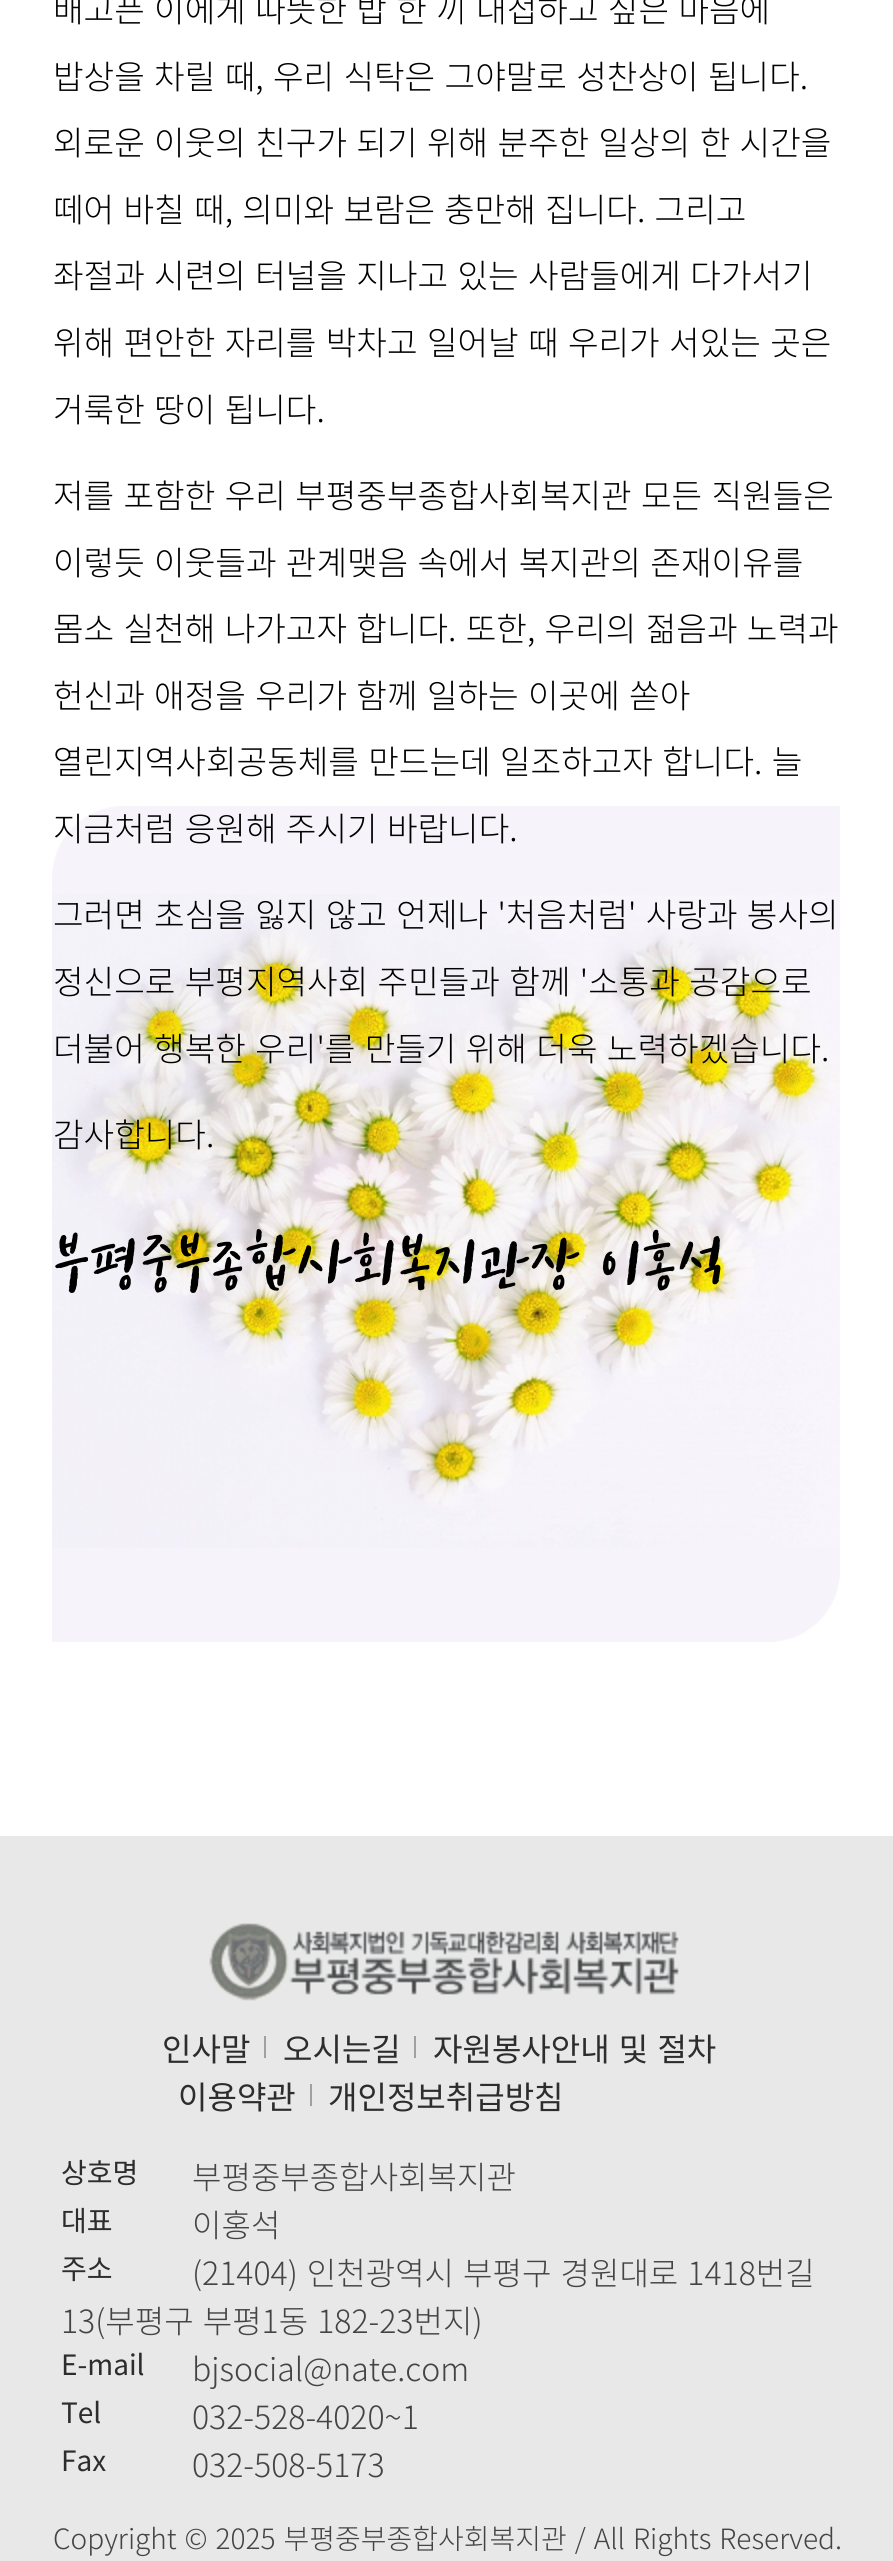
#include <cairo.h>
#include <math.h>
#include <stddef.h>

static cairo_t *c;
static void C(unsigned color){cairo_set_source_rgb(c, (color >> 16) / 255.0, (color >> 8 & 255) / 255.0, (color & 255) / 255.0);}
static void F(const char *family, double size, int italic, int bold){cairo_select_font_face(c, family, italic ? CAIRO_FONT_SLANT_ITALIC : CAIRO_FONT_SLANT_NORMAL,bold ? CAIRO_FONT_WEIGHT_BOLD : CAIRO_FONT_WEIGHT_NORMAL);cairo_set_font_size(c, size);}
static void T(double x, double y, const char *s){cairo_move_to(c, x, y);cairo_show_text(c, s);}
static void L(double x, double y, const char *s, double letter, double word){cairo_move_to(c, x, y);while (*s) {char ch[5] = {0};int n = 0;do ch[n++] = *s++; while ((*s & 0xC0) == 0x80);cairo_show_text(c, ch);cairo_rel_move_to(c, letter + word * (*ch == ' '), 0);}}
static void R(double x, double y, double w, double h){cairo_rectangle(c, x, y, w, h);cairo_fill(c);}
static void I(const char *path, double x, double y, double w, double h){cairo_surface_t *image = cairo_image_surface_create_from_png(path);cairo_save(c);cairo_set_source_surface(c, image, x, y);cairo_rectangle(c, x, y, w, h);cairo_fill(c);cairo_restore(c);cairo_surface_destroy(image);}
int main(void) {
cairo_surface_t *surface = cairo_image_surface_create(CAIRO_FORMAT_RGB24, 893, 2561);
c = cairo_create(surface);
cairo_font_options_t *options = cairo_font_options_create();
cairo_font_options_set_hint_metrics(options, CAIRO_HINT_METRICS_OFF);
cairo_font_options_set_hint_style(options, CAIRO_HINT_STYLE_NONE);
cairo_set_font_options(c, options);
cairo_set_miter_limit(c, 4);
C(0xffffff);
cairo_paint(c);
I("1.png",52,806,788,836);
F("Noto Sans KR Light",33.25,0,0);
C(0x000000);
L(53,22,"배고픈 이에게 따뜻한 밥 한 끼 대접하고 싶은 마음에",0,2);
L(53,89,"밥상을 차릴 때, 우리 식탁은 그야말로 성찬상이 됩니다.",0,2);
L(53,155,"외로운 이웃의 친구가 되기 위해 분주한 일상의 한 시간을",0,2);
L(53,222,"떼어 바칠 때, 의미와 보람은",0,2);
L(444,222,"충만해 집니다. 그리고",0,2);
L(53,288,"좌절과 시련의 터널을 지나고 있는 사람들에게 다가서기",0,2);
L(53,355,"위해 편안한 자리를 박차고 일어날 때 우리가 서있는 곳은",0,2);
L(53,422,"거룩한 땅이 됩니다.",0,2);
L(53,508,"저를 포함한 우리 부평중부종합사회복지관 모든 직원들은",0,2);
L(53,575,"이렇듯 이웃들과 관계맺음 속에서 복지관의 존재이유를",0,2);
L(53,641,"몸소 실천해 나가고자 합니다. 또한, 우리의 젊음과 노력과",0,2);
L(53,708,"헌신과 애정을 우리가 함께 일하는 이곳에 쏟아",0,2);
L(53,774,"열린지역사회공동체를 만드는데 일조하고자 합니다. 늘",0,2);
L(53,841,"지금처럼 응원해 주시기 바랍니다.",0,2);
L(53,927,"그러면 초심을 잃지 않고 언제나 '처음처럼' 사랑과 봉사의",0,2);
L(53,994,"정신으로 부평지역사회 주민들과 함께 '소통과 공감으로",0,2);
L(53,1061,"더불어 행복한 우리'를 만들기 위해 더욱 노력하겠습니다.",0,2);
T(53,1147,"감사합니다.");
F("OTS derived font",76.75,0,1);
T(53,1286,"부평중부종합사회복지관장 이홍석");
C(0xe8e8e8);
R(0,1836,893,725);
I("2.png",209,1923,470,78);
F("Noto Sans KR",32,0,0);
C(0x2d2d2d);
T(162,2061,"인사말");
C(0xa0a0a0);
R(264,2036,2,22);
C(0x2d2d2d);
T(283,2061,"오시는길");
C(0xa0a0a0);
R(414,2036,2,22);
C(0x2d2d2d);
L(433,2061,"자원봉사안내 및 절차",0,2);
T(178,2109,"이용약관");
C(0xa0a0a0);
R(310,2084,2,22);
C(0x2d2d2d);
T(328,2109,"개인정보취급방침");
F("Noto Sans KR",28,0,0);
T(61,2183,"상호명");
F("Noto Sans KR Light",32,0,0);
C(0x444444);
T(192,2189,"부평중부종합사회복지관");
F("Noto Sans KR",28,0,0);
C(0x2d2d2d);
T(61,2231,"대표");
F("Noto Sans KR Light",32,0,0);
C(0x444444);
T(192,2237,"이홍석");
F("Noto Sans KR",28,0,0);
C(0x2d2d2d);
T(61,2279,"주소");
F("Noto Sans KR Light",32,0,0);
C(0x444444);
L(192,2285,"(21404) 인천광역시 부평구 경원대로 1418번길",0,2);
L(61,2333,"13(부평구 부평1동 182-23번지)",0,2);
F("Noto Sans KR",28,0,0);
C(0x2d2d2d);
T(61,2375,"E-mail");
F("Noto Sans KR Light",32,0,0);
C(0x444444);
T(192,2381,"bjsocial@nate.com");
F("Noto Sans KR",28,0,0);
C(0x2d2d2d);
T(61,2423,"Tel");
F("Noto Sans KR Light",32,0,0);
C(0x444444);
T(192,2429,"032-528-4020~1");
F("Noto Sans KR",28,0,0);
C(0x2d2d2d);
T(61,2471,"Fax");
F("Noto Sans KR Light",32,0,0);
C(0x444444);
T(192,2477,"032-508-5173");
F("Noto Sans KR Light",28,0,0);
L(53,2549,"Copyright © 2025 부평중부종합사회복지관 / All Rights Reserved.",0,1.75);
cairo_surface_write_to_png(surface, "o.png");
cairo_font_options_destroy(options);
cairo_destroy(c);
cairo_surface_destroy(surface);
return 0;
}
